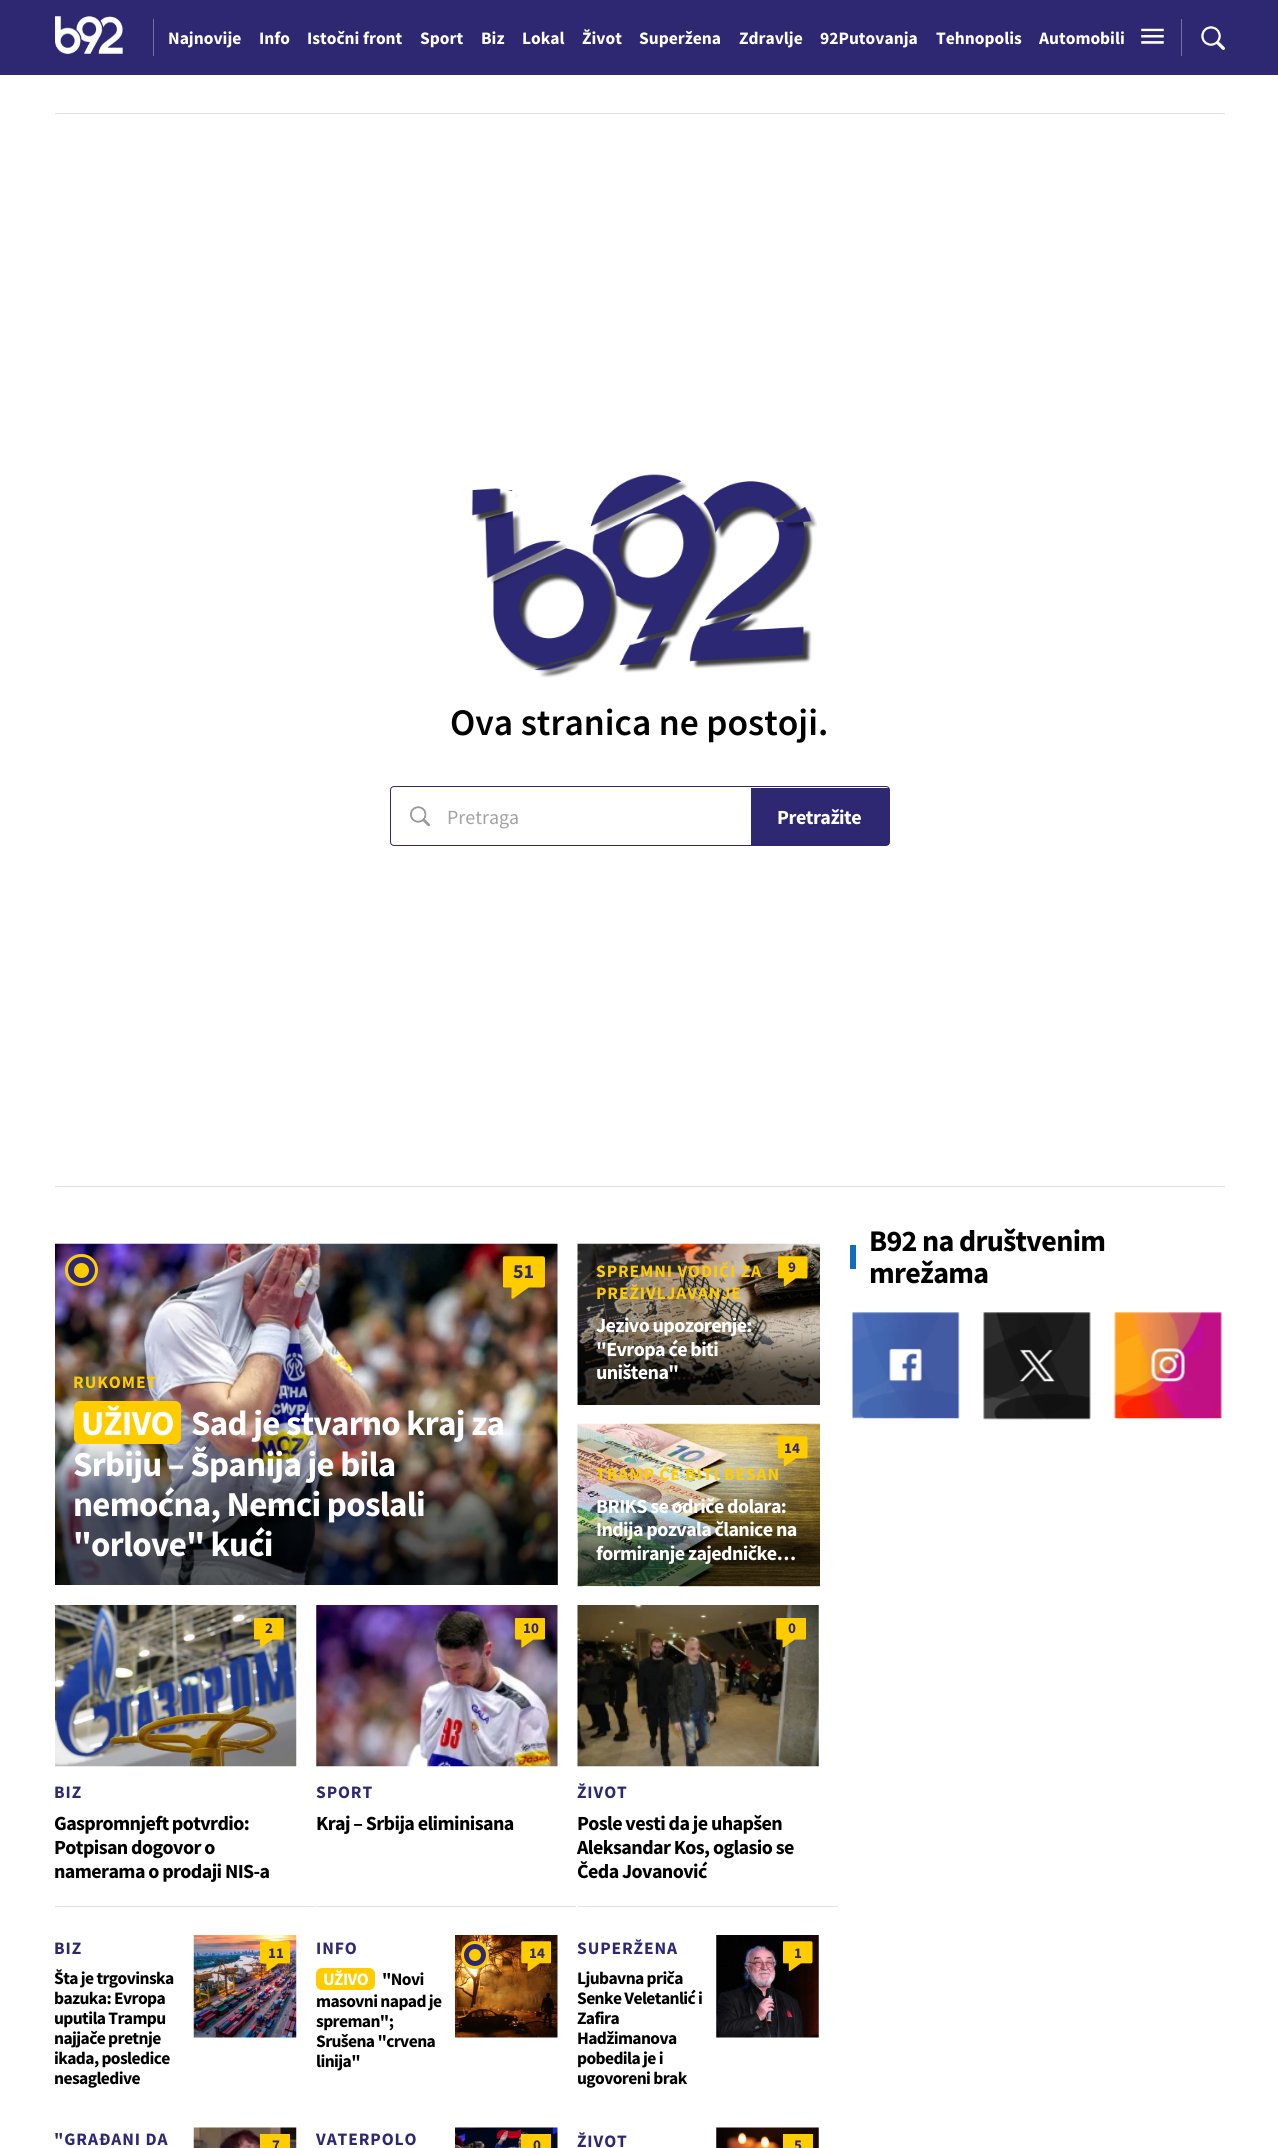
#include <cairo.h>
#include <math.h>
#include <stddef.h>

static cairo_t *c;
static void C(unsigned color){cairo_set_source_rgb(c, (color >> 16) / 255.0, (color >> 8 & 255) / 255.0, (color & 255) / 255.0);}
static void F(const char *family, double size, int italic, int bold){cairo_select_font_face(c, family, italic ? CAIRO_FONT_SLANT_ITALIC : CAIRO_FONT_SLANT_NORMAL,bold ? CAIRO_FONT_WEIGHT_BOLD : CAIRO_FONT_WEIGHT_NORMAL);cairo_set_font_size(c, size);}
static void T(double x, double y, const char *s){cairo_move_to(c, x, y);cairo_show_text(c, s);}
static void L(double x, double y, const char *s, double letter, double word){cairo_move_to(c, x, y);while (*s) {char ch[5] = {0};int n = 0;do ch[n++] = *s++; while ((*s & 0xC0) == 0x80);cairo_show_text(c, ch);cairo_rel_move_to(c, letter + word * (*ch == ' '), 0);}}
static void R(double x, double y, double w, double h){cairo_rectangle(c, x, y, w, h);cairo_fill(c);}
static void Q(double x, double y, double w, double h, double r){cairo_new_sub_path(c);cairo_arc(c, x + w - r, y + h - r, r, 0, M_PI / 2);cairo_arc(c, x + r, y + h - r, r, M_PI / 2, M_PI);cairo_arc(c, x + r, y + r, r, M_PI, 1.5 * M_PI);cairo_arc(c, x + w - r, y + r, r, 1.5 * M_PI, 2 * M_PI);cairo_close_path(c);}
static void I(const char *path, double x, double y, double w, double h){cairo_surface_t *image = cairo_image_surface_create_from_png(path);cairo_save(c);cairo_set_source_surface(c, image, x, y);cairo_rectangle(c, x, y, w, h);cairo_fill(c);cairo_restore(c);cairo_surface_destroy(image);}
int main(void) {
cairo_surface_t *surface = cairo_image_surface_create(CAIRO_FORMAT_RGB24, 1278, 2148);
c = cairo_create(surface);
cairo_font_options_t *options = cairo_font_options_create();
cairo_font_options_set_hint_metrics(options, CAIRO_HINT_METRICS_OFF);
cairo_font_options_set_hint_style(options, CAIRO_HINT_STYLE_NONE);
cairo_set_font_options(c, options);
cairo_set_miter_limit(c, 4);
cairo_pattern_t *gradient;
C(0xffffff);
cairo_paint(c);
C(0x2e2873);
R(0,0,1278,75);
I("1.png",55,16,68,38);
C(0x736fa1);
R(153,19,1,37);
F("Source Sans Pro",17.5,0,1);
C(0xffffff);
T(168,44,"Najnovije");
T(259,44,"Info");
T(307,44,"Istočni front");
T(420,44,"Sport");
T(481,44,"Biz");
T(522,44,"Lokal");
T(582,44,"Život");
T(639,44,"Superžena");
T(739,44,"Zdravlje");
T(820,44,"92Putovanja");
T(936,44,"Tehnopolis");
T(1039,44,"Automobili");
I("2.png",1141,28,23,16);
C(0x736fa1);
R(1181,19,1,37);
I("3.png",1201,26,24,24);
C(0xe0dfea);
R(55,113,1170,1);
R(55,1186,1170,1);
I("4.png",471,474,346,204);
F("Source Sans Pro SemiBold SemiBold",37.5,0,0);
C(0x000000);
T(450,735,"Ova stranica ne postoji.");
Q(390.5,786.5,499,59,3.5);
C(0x2e2873);
cairo_set_line_width(c,1);
cairo_stroke(c);
I("5.png",410,806,20,21);
F("Source Sans Pro",20,0,0);
C(0xa2a2a2);
T(447,824,"Pretraga");
C(0x2e2873);
R(751,788,138,57);
F("Source Sans Pro",20,0,1);
C(0xffffff);
L(777,824,"Pretražite",-.5,0);
C(0x106db9);
R(850,1245,6,24);
F("Source Sans Pro",30,0,1);
C(0x000000);
L(869,1251,"B92 na društvenim",-.7,0);
L(869,1283,"mrežama",-.7,0);
I("6.png",852,1312,108,107);
I("7.png",983,1312,108,108);
I("8.png",1114,1312,108,107);
I("9.png",55,1243,503,342);
gradient = cairo_pattern_create_linear(306,1585,306,1244);
cairo_pattern_add_color_stop_rgba(gradient,0,0,0,0,.64);
cairo_pattern_add_color_stop_rgba(gradient,.2,0,0,0,.6);
cairo_pattern_add_color_stop_rgba(gradient,.45,0,0,0,0);
cairo_set_source(c,gradient);
cairo_pattern_destroy(gradient);
R(55,1435,503,150);
C(0x2e2873);
Q(66.5,1255.5,30,29,14.5);
cairo_fill_preserve(c);
C(0xffcc00);
cairo_set_line_width(c,3);
cairo_stroke(c);
cairo_arc(c,81.5,1270.5,7.5,0,2 * M_PI);
cairo_fill(c);
I("10.png",503,1256,42,43);
F("Source Sans Pro",20,0,1);
C(0x2e2873);
T(513,1278,"51");
F("Source Sans Pro",17.5,0,1);
C(0xffcc00);
L(73,1388,"RUKOMET",.9,0);
Q(74,1401,107,43,6);
cairo_fill(c);
F("Source Sans Pro",35,0,1);
C(0xffffff);
L(81,1435,"UŽIVO",-.7,0);
L(191,1435,"Sad je stvarno kraj za",-.7,0);
L(73,1476,"Srbiju – Španija je bila",-.7,0);
L(73,1516,"nemoćna, Nemci poslali",-.7,0);
L(73,1556,"\"orlove\" kući",-.7,0);
I("11.png",577,1243,243,162);
F("Source Sans Pro",17.5,0,1);
C(0xffcc00);
L(596,1277,"SPREMNI VODIČI ZA",.9,0);
L(596,1299,"PREŽIVLJAVANJE",.9,0);
F("Source Sans Pro",20,0,1);
C(0xffffff);
L(596,1332,"Jezivo upozorenje:",-.6,0);
L(596,1356,"\"Evropa će biti",-.6,0);
L(596,1379,"uništena\"",-.6,0);
I("12.png",778,1256,30,30);
F("Source Sans Pro",15,0,1);
C(0x2e2873);
T(788,1272,"9");
I("13.png",577,1423,243,164);
I("14.png",778,1436,30,30);
T(784,1453,"14");
F("Source Sans Pro",17.5,0,1);
C(0xffcc00);
L(596,1480,"TRAMP ĆE BITI BESAN",.9,0);
F("Source Sans Pro",20,0,1);
C(0xffffff);
L(596,1513,"BRIKS se odriče dolara:",-.6,0);
L(596,1536,"Indija pozvala članice na",-.6,0);
L(596,1560,"formiranje zajedničke…",-.6,0);
I("15.png",55,1605,242,162);
I("16.png",254,1618,30,30);
F("Source Sans Pro",15,0,1);
C(0x2e2873);
T(265,1633,"2");
F("Source Sans Pro",17.5,0,1);
L(54,1798,"BIZ",.9,0);
F("Source Sans Pro",20,0,1);
C(0x000000);
L(54,1830,"Gaspromnjeft potvrdio:",-.6,0);
L(54,1854,"Potpisan dogovor o",-.6,0);
L(54,1878,"namerama o prodaji NIS-a",-.6,0);
C(0xe0dfea);
R(55,1906,260,1);
I("17.png",316,1605,242,162);
I("18.png",515,1618,30,30);
F("Source Sans Pro",15,0,1);
C(0x2e2873);
T(523,1633,"10");
F("Source Sans Pro",17.5,0,1);
L(316,1798,"SPORT",.9,0);
F("Source Sans Pro",20,0,1);
C(0x000000);
L(316,1830,"Kraj – Srbija eliminisana",-.6,0);
C(0xe0dfea);
R(316,1906,260,1);
I("19.png",577,1605,242,162);
I("20.png",776,1618,30,30);
F("Source Sans Pro",15,0,1);
C(0x2e2873);
T(788,1633,"0");
F("Source Sans Pro",17.5,0,1);
L(577,1798,"ŽIVOT",.9,0);
F("Source Sans Pro",20,0,1);
C(0x000000);
L(577,1830,"Posle vesti da je uhapšen",-.6,0);
L(577,1854,"Aleksandar Kos, oglasio se",-.6,0);
L(577,1878,"Čeda Jovanović",-.6,0);
C(0xe0dfea);
R(578,1906,260,1);
F("Source Sans Pro",17.5,0,1);
C(0x2e2873);
L(54,1954,"BIZ",.9,0);
C(0x000000);
L(54,1984,"Šta je trgovinska",-.6,0);
L(54,2004,"bazuka: Evropa",-.6,0);
L(54,2024,"uputila Trampu",-.6,0);
L(54,2044,"najjače pretnje",-.6,0);
L(54,2064,"ikada, posledice",-.6,0);
L(54,2084,"nesagledive",-.6,0);
I("21.png",193,1935,104,103);
I("22.png",260,1941,30,30);
F("Source Sans Pro",15,0,1);
C(0x2e2873);
T(268,1958,"11");
F("Source Sans Pro",17.5,0,1);
L(316,1954,"INFO",.9,0);
C(0xffcc00);
Q(316,1968,59,22,6);
cairo_fill(c);
C(0xffffff);
L(323,1985,"UŽIVO",-.6,0);
C(0x000000);
L(382,1985,"\"Novi",-.6,0);
L(316,2007,"masovni napad je",-.6,0);
L(316,2027,"spreman\";",-.6,0);
L(316,2047,"Srušena \"crvena",-.6,0);
L(316,2067,"linija\"",-.6,0);
I("23.png",455,1935,103,103);
C(0x2e2873);
cairo_arc(c,475,1955,12.5,0,2 * M_PI);
cairo_fill_preserve(c);
C(0xffcc00);
cairo_stroke(c);
cairo_arc(c,475,1955,6,0,2 * M_PI);
cairo_fill(c);
I("24.png",521,1941,30,30);
F("Source Sans Pro",15,0,1);
C(0x2e2873);
T(529,1958,"14");
F("Source Sans Pro",17.5,0,1);
L(577,1954,"SUPERŽENA",.9,0);
C(0x000000);
L(577,1984,"Ljubavna priča",-.6,0);
L(577,2004,"Senke Veletanlić i",-.6,0);
L(577,2024,"Zafira",-.6,0);
L(577,2044,"Hadžimanova",-.6,0);
L(577,2064,"pobedila je i",-.6,0);
L(577,2084,"ugovoreni brak",-.6,0);
I("25.png",716,1935,103,103);
I("26.png",783,1941,30,30);
F("Source Sans Pro",15,0,1);
C(0x2e2873);
T(794,1958,"1");
F("Source Sans Pro",17.5,0,1);
L(54,2145,"\"GRAĐANI DA",.9,0);
I("27.png",193,2127,104,21);
C(0xffcc00);
R(260,2134,30,14);
F("Source Sans Pro",15,0,1);
C(0x2e2873);
T(272,2150,"7");
F("Source Sans Pro",17.5,0,1);
L(316,2145,"VATERPOLO",.9,0);
I("28.png",455,2127,103,21);
C(0xffcc00);
R(521,2134,30,14);
F("Source Sans Pro",15,0,1);
C(0x2e2873);
T(533,2150,"0");
F("Source Sans Pro",17.5,0,1);
L(577,2147,"ŽIVOT",.9,0);
I("29.png",716,2127,103,21);
C(0xffcc00);
R(783,2134,30,14);
F("Source Sans Pro",15,0,1);
C(0x2e2873);
T(794,2150,"5");
cairo_surface_write_to_png(surface, "o.png");
cairo_font_options_destroy(options);
cairo_destroy(c);
cairo_surface_destroy(surface);
return 0;
}
